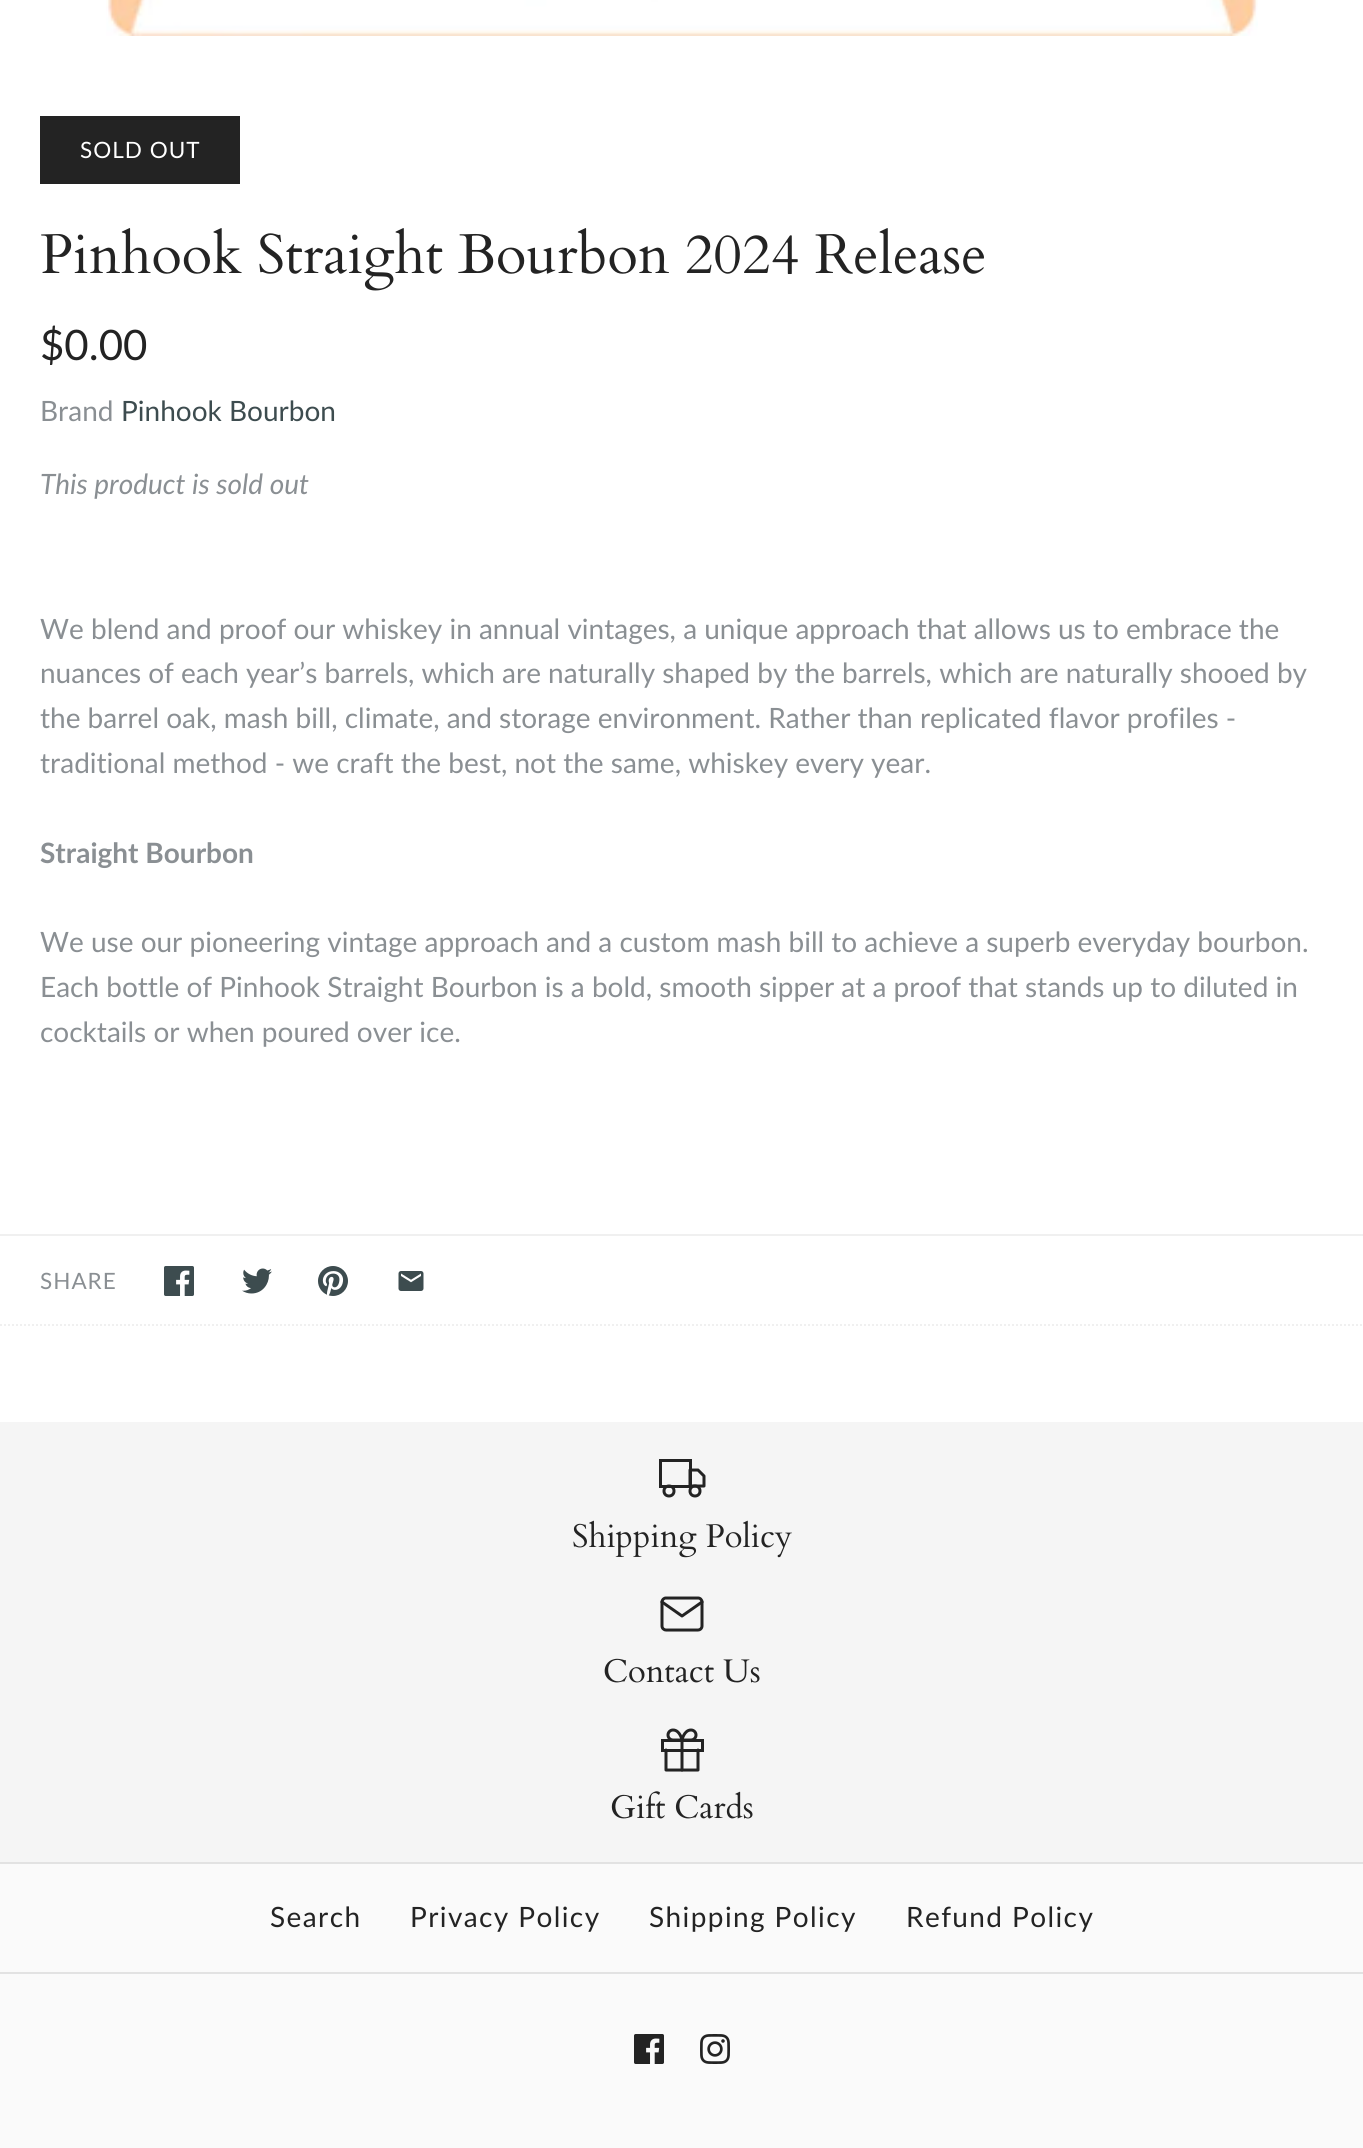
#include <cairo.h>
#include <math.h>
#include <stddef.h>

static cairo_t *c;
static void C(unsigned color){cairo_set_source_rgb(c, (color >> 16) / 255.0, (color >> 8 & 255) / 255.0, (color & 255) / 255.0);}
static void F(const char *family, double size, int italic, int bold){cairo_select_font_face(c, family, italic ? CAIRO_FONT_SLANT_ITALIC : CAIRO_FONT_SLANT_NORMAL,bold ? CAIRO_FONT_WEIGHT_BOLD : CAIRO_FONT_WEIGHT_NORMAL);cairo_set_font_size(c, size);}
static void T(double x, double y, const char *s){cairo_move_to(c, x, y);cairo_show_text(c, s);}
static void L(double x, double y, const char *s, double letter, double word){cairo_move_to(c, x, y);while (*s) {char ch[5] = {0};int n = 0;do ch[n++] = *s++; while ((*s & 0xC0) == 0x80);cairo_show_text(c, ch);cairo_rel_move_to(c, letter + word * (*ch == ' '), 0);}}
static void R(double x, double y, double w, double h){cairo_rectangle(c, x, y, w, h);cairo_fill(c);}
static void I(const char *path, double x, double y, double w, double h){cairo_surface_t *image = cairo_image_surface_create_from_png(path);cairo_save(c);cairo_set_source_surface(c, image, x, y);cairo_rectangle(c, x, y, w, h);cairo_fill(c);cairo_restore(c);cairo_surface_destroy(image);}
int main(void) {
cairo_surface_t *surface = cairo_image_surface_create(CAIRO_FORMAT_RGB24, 1363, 2148);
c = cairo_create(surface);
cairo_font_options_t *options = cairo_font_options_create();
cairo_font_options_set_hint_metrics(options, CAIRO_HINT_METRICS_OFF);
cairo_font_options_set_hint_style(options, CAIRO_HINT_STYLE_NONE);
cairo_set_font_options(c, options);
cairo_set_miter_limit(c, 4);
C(0xffffff);
cairo_paint(c);
I("1.png",106,0,1152,36);
C(0x232323);
R(40,116,200,68);
F("Lato",22.5,0,0);
C(0xffffff);
L(80,158,"SOLD OUT",1,0);
F("Cardo",56,0,0);
C(0x232323);
T(40,273,"Pinhook Straight Bourbon 2024 Release");
F("Lato",42,0,0);
T(40,360,"$0.00");
F("Lato",28,0,0);
C(0x8a8f93);
T(40,421,"Brand");
C(0x3d4c4f);
T(121,421,"Pinhook Bourbon");
F("Lato",28,1,0);
C(0x8a8f93);
T(40,494,"This product is sold out");
F("Lato",28,0,0);
T(40,639,"We blend and proof our whiskey in annual vintages, a unique approach that allows us to embrace the");
T(40,683,"nuances of each year’s barrels, which are naturally shaped by the barrels, which are naturally shooed by");
T(40,728,"the barrel oak, mash bill, climate, and storage environment. Rather than replicated flavor profiles -");
T(40,773,"traditional method - we craft the best, not the same, whiskey every year.");
F("Lato",28,0,1);
T(40,863,"Straight Bourbon");
F("Lato",28,0,0);
T(40,952,"We use our pioneering vintage approach and a custom mash bill to achieve a superb everyday bourbon.");
T(40,997,"Each bottle of Pinhook Straight Bourbon is a bold, smooth sipper at a proof that stands up to diluted in");
T(40,1042,"cocktails or when poured over ice.");
C(0xf0f0f0);
R(0,1234,1363,2);
cairo_new_path(c);
cairo_move_to(c,0,1325);
cairo_line_to(c,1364,1325);
cairo_set_dash(c,(double[]){2,2},2,0);
cairo_stroke(c);
F("Lato",22.5,0,0);
C(0x8a8f93);
L(40,1289,"SHARE",1,0);
I("2.png",164,1266,30,30);
I("3.png",242,1268,30,26);
I("4.png",318,1266,30,30);
I("5.png",398,1271,26,20);
C(0xfafafa);
R(0,1864,1363,284);
C(0xf5f5f5);
R(0,1422,1363,440);
cairo_rectangle(c,660.5,1460.5,30,26);
C(0x232323);
cairo_set_line_width(c,3);
cairo_set_dash(c,NULL,0,0);
cairo_stroke(c);
cairo_new_path(c);
cairo_move_to(c,690,1470);
cairo_line_to(c,698,1470);
cairo_line_to(c,704,1476);
cairo_line_to(c,704,1486);
cairo_line_to(c,690,1486);
cairo_close_path(c);
cairo_set_line_cap(c,CAIRO_LINE_CAP_ROUND);
cairo_set_line_join(c,CAIRO_LINE_JOIN_ROUND);
cairo_stroke(c);
cairo_arc(c,669,1491,5,0,2 * M_PI);
cairo_set_line_cap(c,CAIRO_LINE_CAP_BUTT);
cairo_set_line_join(c,CAIRO_LINE_JOIN_MITER);
cairo_stroke(c);
cairo_arc(c,695,1491,5,0,2 * M_PI);
cairo_stroke(c);
F("Cardo",32.75,0,0);
T(572,1547,"Shipping Policy");
I("6.png",660,1596,44,36);
T(603,1682,"Contact Us");
I("7.png",661,1728,43,44);
T(610,1818,"Gift Cards");
C(0xe2e2e2);
R(0,1862,1363,2);
R(0,1972,1363,2);
F("Lato",28,0,0);
C(0x232323);
L(270,1927,"Search",1.4,0);
L(410,1927,"Privacy Policy",1.4,0);
L(649,1927,"Shipping Policy",1.4,0);
L(906,1927,"Refund Policy",1.4,0);
I("8.png",634,2034,30,30);
I("9.png",700,2034,30,30);
cairo_surface_write_to_png(surface, "o.png");
cairo_font_options_destroy(options);
cairo_destroy(c);
cairo_surface_destroy(surface);
return 0;
}
